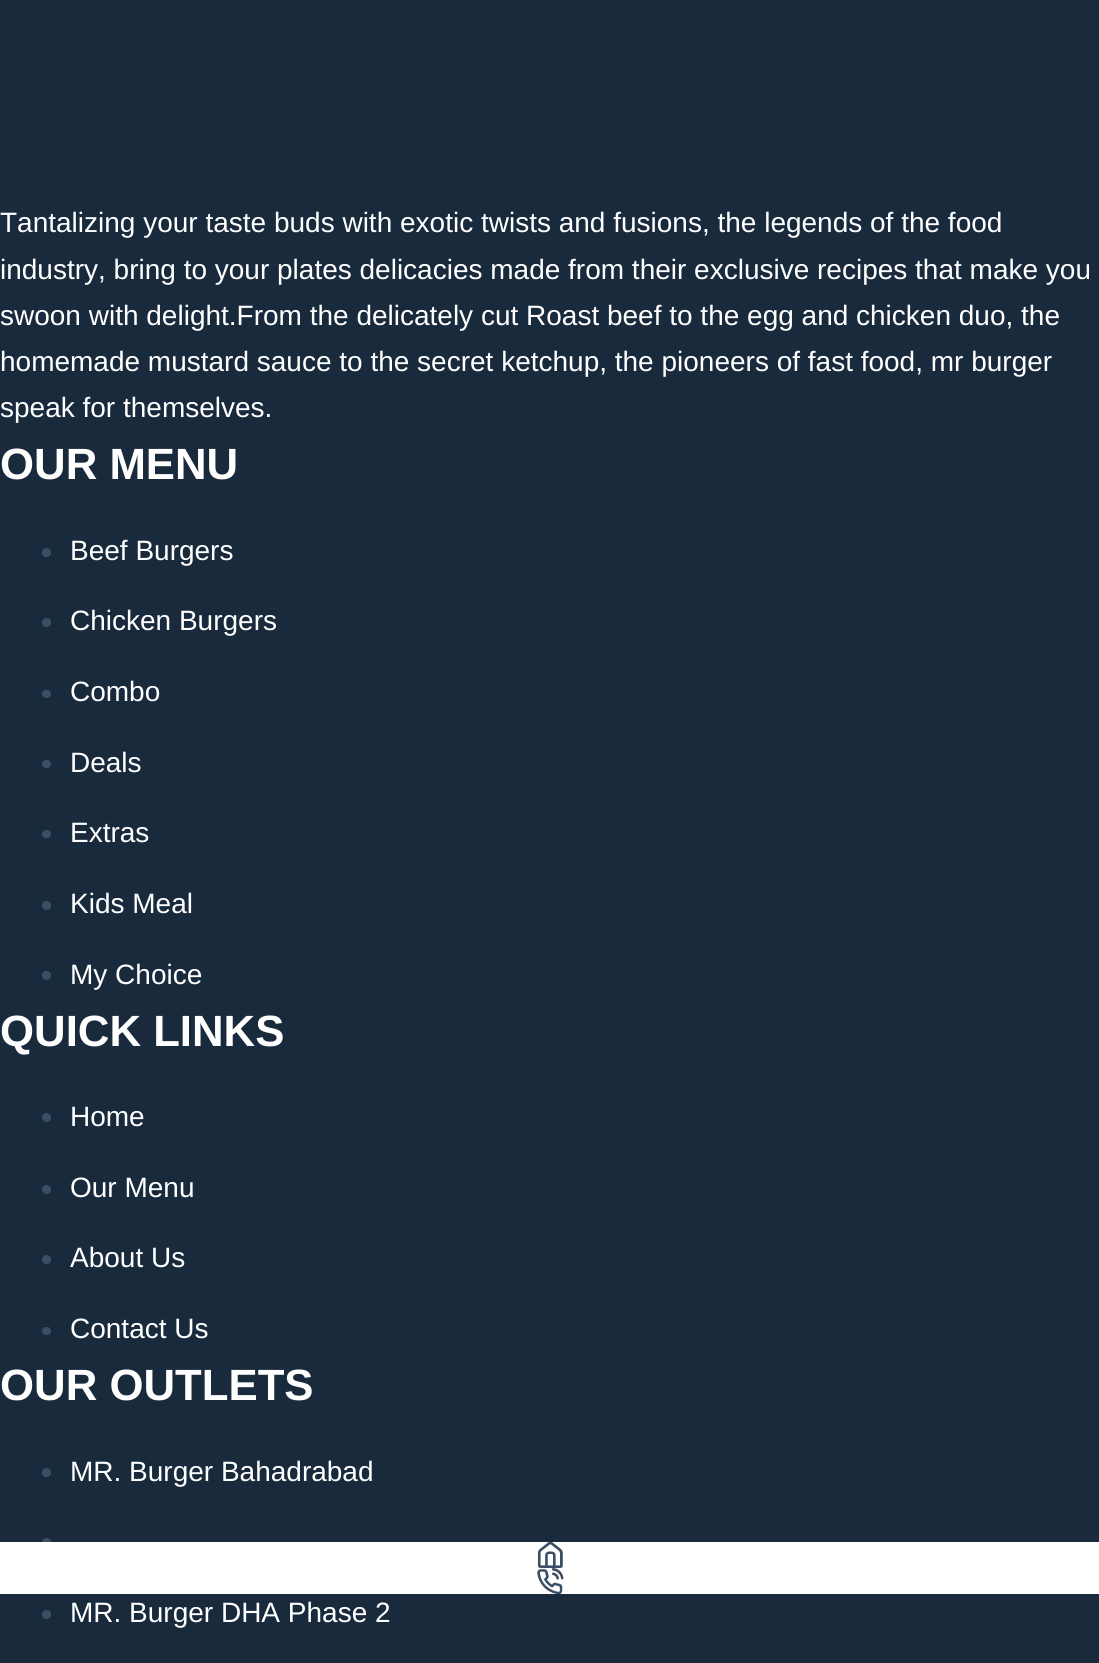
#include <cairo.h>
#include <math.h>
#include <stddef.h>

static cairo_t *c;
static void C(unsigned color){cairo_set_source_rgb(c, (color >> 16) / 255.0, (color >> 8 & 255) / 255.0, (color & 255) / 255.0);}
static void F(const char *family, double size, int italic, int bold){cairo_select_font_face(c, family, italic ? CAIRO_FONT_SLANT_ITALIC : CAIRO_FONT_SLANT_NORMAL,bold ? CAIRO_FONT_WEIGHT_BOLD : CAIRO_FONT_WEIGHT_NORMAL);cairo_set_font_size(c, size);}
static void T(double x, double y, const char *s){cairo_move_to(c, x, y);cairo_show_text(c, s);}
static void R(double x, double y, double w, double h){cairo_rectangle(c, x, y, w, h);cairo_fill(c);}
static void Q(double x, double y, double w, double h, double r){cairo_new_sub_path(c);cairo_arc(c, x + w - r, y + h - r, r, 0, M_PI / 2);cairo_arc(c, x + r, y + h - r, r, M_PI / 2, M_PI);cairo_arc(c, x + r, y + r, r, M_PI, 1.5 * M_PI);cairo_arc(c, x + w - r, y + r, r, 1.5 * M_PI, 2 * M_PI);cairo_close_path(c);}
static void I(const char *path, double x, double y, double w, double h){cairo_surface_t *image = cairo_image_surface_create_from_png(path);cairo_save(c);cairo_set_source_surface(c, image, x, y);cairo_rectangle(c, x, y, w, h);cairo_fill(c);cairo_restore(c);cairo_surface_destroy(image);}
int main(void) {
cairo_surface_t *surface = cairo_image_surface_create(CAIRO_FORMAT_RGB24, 1099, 1663);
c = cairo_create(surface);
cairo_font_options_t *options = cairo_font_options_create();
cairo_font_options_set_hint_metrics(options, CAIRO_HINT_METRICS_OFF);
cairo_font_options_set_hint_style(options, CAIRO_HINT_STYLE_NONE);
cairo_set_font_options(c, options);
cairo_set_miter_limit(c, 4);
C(0x192a3d);
cairo_paint(c);
F("Liberation Sans",28,0,0);
C(0xffffff);
T(0,232,"Tantalizing your taste buds with exotic twists and fusions, the legends of the food");
T(0,279,"industry, bring to your plates delicacies made from their exclusive recipes that make you");
T(0,325,"swoon with delight.From the delicately cut Roast beef to the egg and chicken duo, the");
T(0,371,"homemade mustard sauce to the secret ketchup, the pioneers of fast food, mr burger");
T(0,417,"speak for themselves.");
F("Liberation Sans",43.75,0,1);
T(0,479,"OUR MENU");
C(0x3a4f66);
cairo_new_path(c);
cairo_arc(c,46.5,552.5,4.5,0,2 * M_PI);
cairo_fill(c);
F("Liberation Sans",28,0,0);
C(0xffffff);
T(70,560,"Beef Burgers");
C(0x3a4f66);
cairo_new_path(c);
cairo_arc(c,46.5,622.5,4.5,0,2 * M_PI);
cairo_fill(c);
C(0xffffff);
T(70,630,"Chicken Burgers");
C(0x3a4f66);
Q(42,690,9,8,4);
cairo_fill(c);
C(0xffffff);
T(70,701,"Combo");
C(0x3a4f66);
Q(42,760,9,8,4);
cairo_fill(c);
C(0xffffff);
T(70,772,"Deals");
C(0x3a4f66);
Q(42,830,9,8,4);
cairo_fill(c);
C(0xffffff);
T(70,842,"Extras");
C(0x3a4f66);
cairo_new_path(c);
cairo_arc(c,46.5,905.5,4.5,0,2 * M_PI);
cairo_fill(c);
C(0xffffff);
T(70,913,"Kids Meal");
C(0x3a4f66);
cairo_new_path(c);
cairo_arc(c,46.5,975.5,4.5,0,2 * M_PI);
cairo_fill(c);
C(0xffffff);
T(70,984,"My Choice");
F("Liberation Sans",43.75,0,1);
T(0,1046,"QUICK LINKS");
C(0x3a4f66);
cairo_new_path(c);
cairo_arc(c,46.5,1117.5,4.5,0,2 * M_PI);
cairo_fill(c);
F("Liberation Sans",28,0,0);
C(0xffffff);
T(70,1126,"Home");
C(0x3a4f66);
cairo_new_path(c);
cairo_arc(c,46.5,1189.5,4.5,0,2 * M_PI);
cairo_fill(c);
C(0xffffff);
T(70,1197,"Our Menu");
C(0x3a4f66);
cairo_new_path(c);
cairo_arc(c,46.5,1259.5,4.5,0,2 * M_PI);
cairo_fill(c);
C(0xffffff);
T(70,1267,"About Us");
C(0x3a4f66);
Q(42,1327,9,8,4);
cairo_fill(c);
C(0xffffff);
T(70,1338,"Contact Us");
F("Liberation Sans",43.75,0,1);
T(0,1400,"OUR OUTLETS");
C(0x3a4f66);
cairo_new_path(c);
cairo_arc(c,46.5,1472.5,4.5,0,2 * M_PI);
cairo_fill(c);
F("Liberation Sans",28,0,0);
C(0xffffff);
T(70,1481,"MR. Burger Bahadrabad");
C(0x3a4f66);
cairo_new_path(c);
cairo_arc(c,46.5,1542.5,4.5,0,2 * M_PI);
cairo_fill(c);
cairo_arc(c,46.5,1614.5,4.5,0,2 * M_PI);
cairo_fill(c);
C(0xffffff);
T(70,1622,"MR. Burger DHA Phase 2");
R(0,1542,1099,52);
I("1.png",537,1542,26,26);
I("2.png",537,1568,27,26);
cairo_surface_write_to_png(surface, "o.png");
cairo_font_options_destroy(options);
cairo_destroy(c);
cairo_surface_destroy(surface);
return 0;
}
